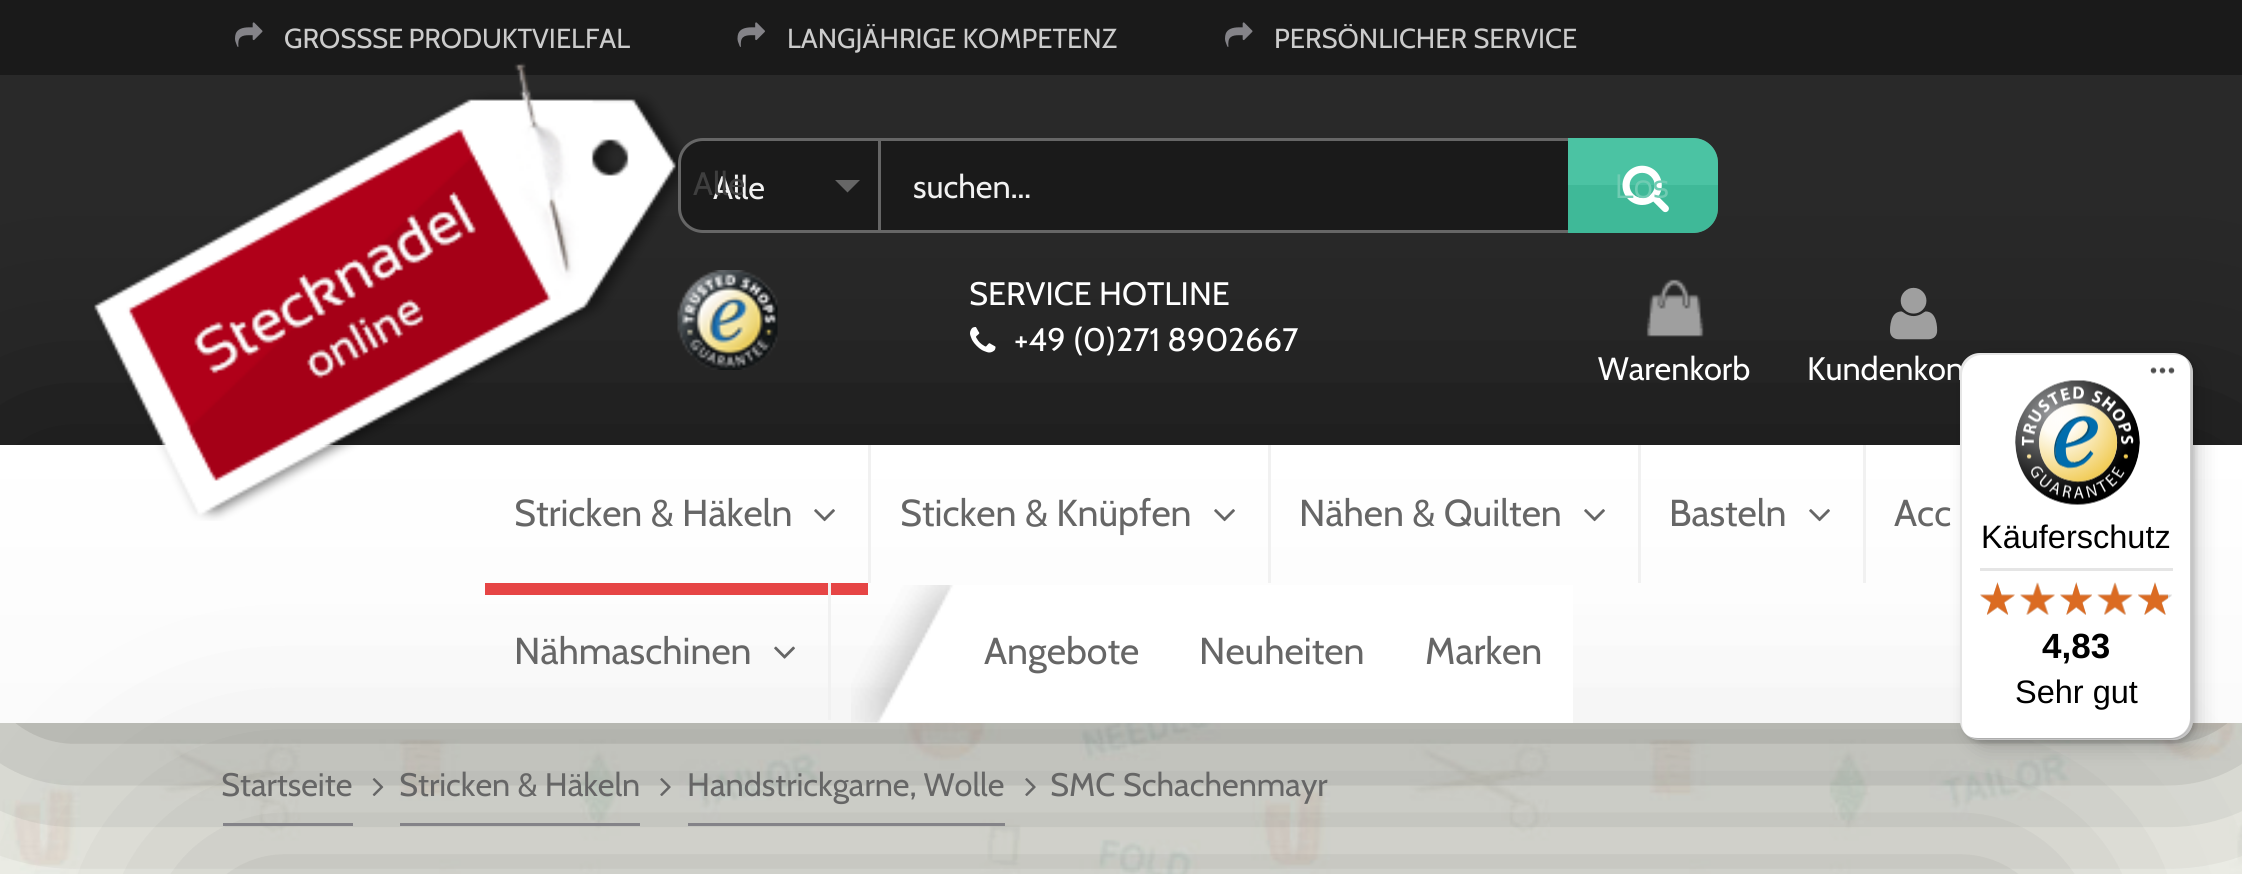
#include <cairo.h>
#include <math.h>
#include <stddef.h>

static cairo_t *c;
static void C(unsigned color){cairo_set_source_rgb(c, (color >> 16) / 255.0, (color >> 8 & 255) / 255.0, (color & 255) / 255.0);}
static void F(const char *family, double size, int italic, int bold){cairo_select_font_face(c, family, italic ? CAIRO_FONT_SLANT_ITALIC : CAIRO_FONT_SLANT_NORMAL,bold ? CAIRO_FONT_WEIGHT_BOLD : CAIRO_FONT_WEIGHT_NORMAL);cairo_set_font_size(c, size);}
static void T(double x, double y, const char *s){cairo_move_to(c, x, y);cairo_show_text(c, s);}
static void L(double x, double y, const char *s, double letter, double word){cairo_move_to(c, x, y);while (*s) {char ch[5] = {0};int n = 0;do ch[n++] = *s++; while ((*s & 0xC0) == 0x80);cairo_show_text(c, ch);cairo_rel_move_to(c, letter + word * (*ch == ' '), 0);}}
static void R(double x, double y, double w, double h){cairo_rectangle(c, x, y, w, h);cairo_fill(c);}
static void Q(double x, double y, double w, double h, double r){cairo_new_sub_path(c);cairo_arc(c, x + w - r, y + h - r, r, 0, M_PI / 2);cairo_arc(c, x + r, y + h - r, r, M_PI / 2, M_PI);cairo_arc(c, x + r, y + r, r, M_PI, 1.5 * M_PI);cairo_arc(c, x + w - r, y + r, r, 1.5 * M_PI, 2 * M_PI);cairo_close_path(c);}
static void S(double x, double y, double w, double h, double r, double blur, double alpha){cairo_push_group_with_content(c, CAIRO_CONTENT_ALPHA);cairo_set_operator(c, CAIRO_OPERATOR_SOURCE);for (int i = 15; i >= -15 && fmin(w, h) + blur * i / 3 > 0; i -= 2) {double e = blur * i / 6;cairo_set_source_rgba(c, 0, 0, 0, alpha * erfc((i - 1) / 8.5) / 2);Q(x - e, y - e, w + 2 * e, h + 2 * e, fmax(0, fmin(r + e + blur * .6, fmin(w, h) / 2 + e)));cairo_fill(c);}cairo_pattern_t *soft = cairo_pop_group(c);cairo_mask(c, soft);cairo_pattern_destroy(soft);}
static void I(const char *path, double x, double y, double w, double h){cairo_surface_t *image = cairo_image_surface_create_from_png(path);cairo_save(c);cairo_set_source_surface(c, image, x, y);cairo_rectangle(c, x, y, w, h);cairo_fill(c);cairo_restore(c);cairo_surface_destroy(image);}
int main(void) {
cairo_surface_t *surface = cairo_image_surface_create(CAIRO_FORMAT_RGB24, 2242, 874);
c = cairo_create(surface);
cairo_font_options_t *options = cairo_font_options_create();
cairo_font_options_set_hint_metrics(options, CAIRO_HINT_METRICS_OFF);
cairo_font_options_set_hint_style(options, CAIRO_HINT_STYLE_NONE);
cairo_set_font_options(c, options);
cairo_set_miter_limit(c, 4);
cairo_pattern_t *gradient;
C(0xffffff);
cairo_paint(c);
I("1.png",0,723,2242,151);
C(0x292929);
R(0,75,2242,370);
C(0x1a1a1a);
R(0,0,2242,75);
I("2.png",235,22,28,25);
F("Cabin",27.5,0,0);
C(0xcccccc);
T(284,48,"GROSS");
L(372,48,"SE PRODUKTVIELFAL",0,-1);
I("3.png",737,22,28,25);
T(787,48,"LANGJÄHRIGE KOMPETENZ");
I("2.png",1225,22,28,25);
T(1274,48,"PERSÖNLICHER SERVICE");
C(0x000000);
S(0,445,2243,278,0,125,.5);
gradient = cairo_pattern_create_linear(1121,445,1121,723);
cairo_pattern_add_color_stop_rgba(gradient,0,1,1,1,1);
cairo_pattern_add_color_stop_rgba(gradient,1,0.984,0.984,0.984,1);
cairo_set_source(c,gradient);
cairo_pattern_destroy(gradient);
R(0,445,2242,278);
C(0x000000);
S(210,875,1825,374,0,125,.25);
I("4.png",94,62,591,459);
C(0x1a1a1a);
Q(679.5,139.5,1037,92,23.5);
cairo_fill_preserve(c);
C(0x666666);
cairo_set_line_width(c,3);
cairo_stroke(c);
R(878,140,3,90);
F("Cabin",32.5,0,0);
C(0xf1f1f1);
T(713,199,"Alle");
C(0x3f3f3f);
T(693,195,"Alle");
C(0x666666);
cairo_new_path(c);
cairo_move_to(c,835,180);
cairo_line_to(c,860,180);
cairo_line_to(c,847.5,192.5);
cairo_close_path(c);
cairo_fill(c);
C(0xf1f1f1);
T(913,198,"suchen...");
C(0x4bc3a3);
cairo_new_path(c);
cairo_move_to(c,1568,138);
cairo_line_to(c,1693,138);
cairo_curve_to(c,1707,138,1718,149,1718,163);
cairo_line_to(c,1718,185);
cairo_line_to(c,1568,185);
cairo_close_path(c);
cairo_fill(c);
C(0x3fb998);
cairo_new_path(c);
cairo_move_to(c,1568,185);
cairo_line_to(c,1718,185);
cairo_line_to(c,1718,208);
cairo_curve_to(c,1718,222,1707,233,1693,233);
cairo_line_to(c,1568,233);
cairo_close_path(c);
cairo_fill(c);
I("5.png",1622,165,47,48);
F("Sansation Light",32.5,0,1);
C(0x70ccb3);
T(1615,198,"Los");
I("6.png",677,270,101,100);
F("Cabin",32.5,0,0);
C(0xffffff);
T(969,305,"SERVICE HOTLINE");
I("7.png",970,327,26,26);
T(1014,351,"+49 (0)271 8902667");
I("8.png",1646,279,58,58);
T(1598,380,"Warenkorb");
I("9.png",1890,287,48,53);
T(1807,380,"Kundenkon");
C(0xf1f1f1);
R(868,445,3,138);
F("Cabin",37.5,0,0);
C(0x666666);
T(514,526,"Stricken & Häkeln");
I("10.png",814,509,21,13);
C(0xe64545);
R(485,583,383,12);
C(0xf1f1f1);
R(1268,445,3,138);
C(0x666666);
T(900,526,"Sticken & Knüpfen");
I("10.png",1214,509,21,13);
C(0xf1f1f1);
R(1638,445,3,138);
C(0x666666);
T(1299,526,"Nähen & Quilten");
I("10.png",1584,509,21,13);
C(0xf1f1f1);
R(1863,445,3,138);
C(0x666666);
T(1669,526,"Basteln");
I("10.png",1809,509,21,13);
T(1894,526,"Acc");
C(0xf1f1f1);
R(828,583,3,137);
C(0x666666);
T(514,664,"Nähmaschinen");
I("11.png",774,646,21,13);
C(0xffffff);
R(955,585,618,138);
I("12.png",851,585,104,138);
C(0x666666);
T(984,664,"Angebote");
T(1199,664,"Neuheiten");
T(1425,664,"Marken");
C(0x848388);
R(223,823,130,3);
F("Cabin",32.5,0,0);
C(0x666666);
T(221,796,"Startseite");
I("13.png",372,778,12,18);
C(0x848388);
R(400,823,240,3);
C(0x666666);
T(399,796,"Stricken & Häkeln");
I("14.png",660,778,11,18);
C(0x848388);
R(688,823,317,3);
C(0x666666);
T(687,796,"Handstrickgarne, Wolle");
I("14.png",1025,778,11,18);
T(1050,796,"SMC Schachenmayr");
C(0x000000);
S(1968,360,232,388,20,10,.15);
S(1963,355,232,388,20,2.5,.15);
C(0xffffff);
Q(1960,353,233,387,20);
cairo_fill(c);
cairo_set_source_rgba(c,0,0,0,0.1);
cairo_new_path(c);
cairo_move_to(c,1982,355);
cairo_line_to(c,2175,355);
cairo_curve_to(c,2180,355,2185,357,2188,360);
cairo_curve_to(c,2185,356,2179,353,2173,353);
cairo_line_to(c,1980,353);
cairo_curve_to(c,1969,353,1960,362,1960,373);
cairo_line_to(c,1960,720);
cairo_curve_to(c,1960,725,1962,730,1966,734);
cairo_curve_to(c,1963,731,1962,727,1962,722);
cairo_line_to(c,1962,375);
cairo_curve_to(c,1962,364,1971,355,1982,355);
cairo_close_path(c);
cairo_fill(c);
cairo_set_source_rgba(c,0,0,0,0.2);
cairo_new_path(c);
cairo_move_to(c,1966,734);
cairo_curve_to(c,1970,738,1975,740,1980,740);
cairo_line_to(c,2173,740);
cairo_curve_to(c,2184,740,2193,731,2193,720);
cairo_line_to(c,2193,373);
cairo_curve_to(c,2193,367,2190,361,2185,357);
cairo_curve_to(c,2188,361,2190,365,2190,370);
cairo_line_to(c,2190,718);
cairo_curve_to(c,2190,729,2181,738,2170,738);
cairo_line_to(c,1978,738);
cairo_curve_to(c,1973,738,1969,737,1966,734);
cairo_close_path(c);
cairo_fill(c);
cairo_set_source_rgba(c,0.196,0.196,0.196,0.2);
cairo_new_path(c);
cairo_move_to(c,1966,734);
cairo_curve_to(c,1970,738,1975,740,1980,740);
cairo_line_to(c,2173,740);
cairo_curve_to(c,2184,740,2193,731,2193,720);
cairo_line_to(c,2193,373);
cairo_curve_to(c,2193,367,2190,361,2186,358);
cairo_curve_to(c,2189,361,2191,366,2191,371);
cairo_line_to(c,2191,718);
cairo_curve_to(c,2191,730,2182,738,2171,738);
cairo_line_to(c,1978,738);
cairo_curve_to(c,1973,738,1969,737,1966,734);
cairo_close_path(c);
cairo_fill(c);
cairo_set_source_rgba(c,1,1,1,0.3);
cairo_new_path(c);
cairo_move_to(c,1965,733);
cairo_curve_to(c,1969,737,1974,740,1980,740);
cairo_line_to(c,2173,740);
cairo_curve_to(c,2184,740,2193,731,2193,720);
cairo_line_to(c,2193,373);
cairo_curve_to(c,2193,367,2190,361,2186,358);
cairo_curve_to(c,2189,361,2191,366,2191,371);
cairo_line_to(c,2191,719);
cairo_curve_to(c,2191,730,2182,739,2171,739);
cairo_line_to(c,1979,739);
cairo_curve_to(c,1974,739,1969,737,1965,733);
cairo_close_path(c);
cairo_fill(c);
I("15.png",2150,367,25,7);
I("16.png",2015,380,125,125);
F("Liberation Sans",32.5,0,0);
C(0x000000);
T(1981,548,"Käuferschutz");
C(0xe5e5e5);
R(1980,568,193,3);
I("17.png",1980,582,35,33);
I("18.png",2020,583,35,32);
I("19.png",2060,582,32,33);
I("20.png",2098,583,34,32);
I("21.png",2138,582,34,33);
I("22.png",1980,582,35,33);
I("23.png",2020,582,35,33);
I("24.png",2060,582,32,33);
I("25.png",2097,582,36,33);
I("26.png",2138,582,30,33);
F("Liberation Sans",35,0,1);
C(0x000000);
T(2042,658,"4,83");
F("Liberation Sans",32.5,0,0);
T(2015,703,"Sehr gut");
cairo_surface_write_to_png(surface, "o.png");
cairo_font_options_destroy(options);
cairo_destroy(c);
cairo_surface_destroy(surface);
return 0;
}
